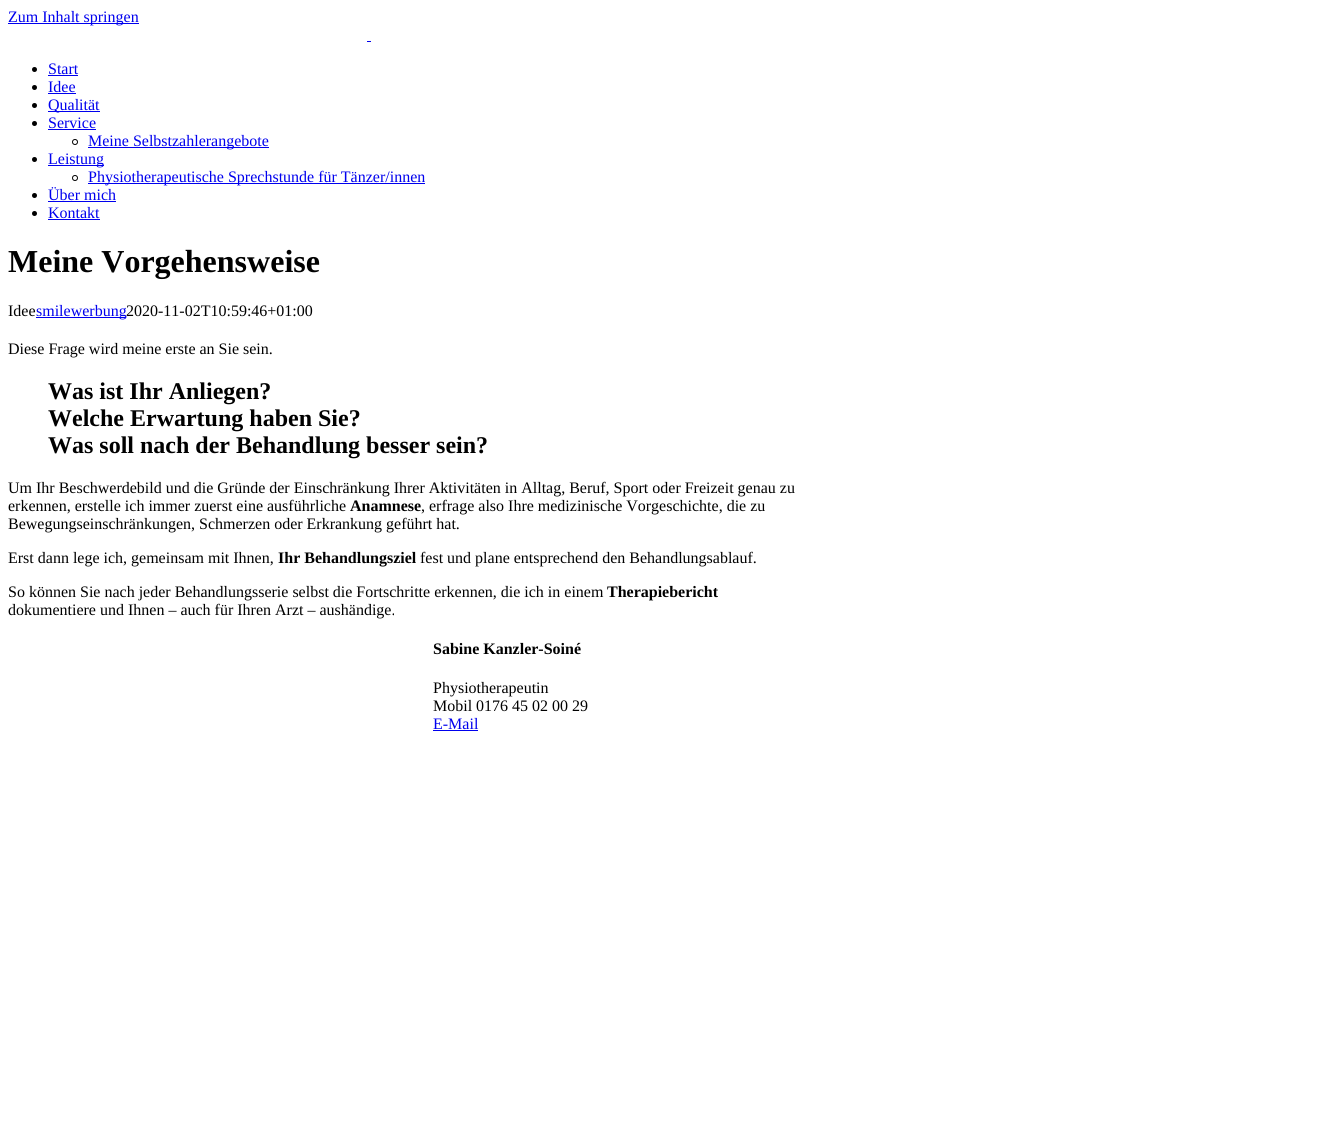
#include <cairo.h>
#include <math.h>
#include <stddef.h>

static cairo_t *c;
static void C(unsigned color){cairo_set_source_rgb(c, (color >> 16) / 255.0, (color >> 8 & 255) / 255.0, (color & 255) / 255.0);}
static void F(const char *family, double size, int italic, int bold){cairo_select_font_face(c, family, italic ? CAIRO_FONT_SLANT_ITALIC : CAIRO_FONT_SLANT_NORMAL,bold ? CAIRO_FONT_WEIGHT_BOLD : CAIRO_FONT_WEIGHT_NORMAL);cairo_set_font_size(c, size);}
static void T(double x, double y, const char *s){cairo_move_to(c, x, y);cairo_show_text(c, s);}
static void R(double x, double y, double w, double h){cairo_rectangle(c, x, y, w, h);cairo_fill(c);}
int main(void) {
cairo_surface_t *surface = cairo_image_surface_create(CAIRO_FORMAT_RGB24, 1319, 1148);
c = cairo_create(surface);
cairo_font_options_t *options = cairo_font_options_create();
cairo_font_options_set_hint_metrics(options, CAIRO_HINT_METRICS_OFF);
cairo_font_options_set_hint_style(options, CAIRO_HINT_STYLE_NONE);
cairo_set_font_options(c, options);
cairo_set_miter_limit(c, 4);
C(0xffffff);
cairo_paint(c);
C(0x0000ee);
R(8,23,131,1);
F("Liberation Serif",16,0,0);
T(8,22,"Zum Inhalt springen");
R(367,41,4,1);
C(0x000000);
cairo_new_path(c);
cairo_arc(c,34.5,69.5,2.5,0,2 * M_PI);
cairo_fill(c);
C(0x0000ee);
T(48,74,"Start");
R(48,75,30,1);
C(0x000000);
cairo_new_path(c);
cairo_arc(c,34.5,87.5,2.5,0,2 * M_PI);
cairo_fill(c);
C(0x0000ee);
T(48,92,"Idee");
R(48,93,28,1);
C(0x000000);
cairo_new_path(c);
cairo_arc(c,34.5,105.5,2.5,0,2 * M_PI);
cairo_fill(c);
C(0x0000ee);
R(48,111,52,1);
T(48,110,"Qualität");
C(0x000000);
cairo_new_path(c);
cairo_arc(c,34.5,123.5,2.5,0,2 * M_PI);
cairo_fill(c);
C(0x0000ee);
T(48,128,"Service");
R(48,129,48,1);
cairo_new_path(c);
cairo_arc(c,75,142,2.5,0,2 * M_PI);
C(0x000000);
cairo_set_line_width(c,1);
cairo_stroke(c);
C(0x0000ee);
R(88,147,181,1);
T(88,146,"Meine Selbstzahlerangebote");
C(0x000000);
cairo_new_path(c);
cairo_arc(c,34.5,159.5,2.5,0,2 * M_PI);
cairo_fill(c);
C(0x0000ee);
R(48,165,56,1);
T(48,164,"Leistung");
cairo_new_path(c);
cairo_arc(c,75,178,2.5,0,2 * M_PI);
C(0x000000);
cairo_stroke(c);
C(0x0000ee);
R(88,183,337,1);
T(88,182,"Physiotherapeutische Sprechstunde für Tänzer/innen");
C(0x000000);
cairo_new_path(c);
cairo_arc(c,34.5,195.5,2.5,0,2 * M_PI);
cairo_fill(c);
C(0x0000ee);
T(48,200,"Über mich");
R(48,201,68,1);
C(0x000000);
cairo_new_path(c);
cairo_arc(c,34.5,213.5,2.5,0,2 * M_PI);
cairo_fill(c);
C(0x0000ee);
T(48,218,"Kontakt");
R(48,219,52,1);
F("Liberation Serif",32,0,1);
C(0x000000);
T(8,272,"Meine Vorgehensweise");
F("Liberation Serif",16,0,0);
T(8,316,"Idee");
C(0x0000ee);
R(36,317,90,1);
T(36,316,"smilewerbung");
C(0x000000);
T(126,316,"2020-11-02T10:59:46+01:00");
T(8,354,"Diese Frage wird meine erste an Sie sein.");
F("Liberation Serif",24,0,1);
T(48,399,"Was ist Ihr Anliegen?");
T(48,426,"Welche Erwartung haben Sie?");
T(48,453,"Was soll nach der Behandlung besser sein?");
F("Liberation Serif",16,0,0);
T(8,493,"Um Ihr Beschwerdebild und die Gründe der Einschränkung Ihrer Aktivitäten in Alltag, Beruf, Sport oder Freizeit genau zu");
T(8,511,"erkennen, erstelle ich immer zuerst eine ausführliche");
F("Liberation Serif",16,0,1);
T(350,511,"Anamnese");
F("Liberation Serif",16,0,0);
T(421,511,", erfrage also Ihre medizinische Vorgeschichte, die zu");
T(8,529,"Bewegungseinschränkungen, Schmerzen oder Erkrankung geführt hat.");
T(8,563,"Erst dann lege ich, gemeinsam mit Ihnen,");
F("Liberation Serif",16,0,1);
T(278,563,"Ihr Behandlungsziel");
F("Liberation Serif",16,0,0);
T(420,563,"fest und plane entsprechend den Behandlungsablauf.");
T(8,597,"So können Sie nach jeder Behandlungsserie selbst die Fortschritte erkennen, die ich in einem");
F("Liberation Serif",16,0,1);
T(607,597,"Therapiebericht");
F("Liberation Serif",16,0,0);
T(8,615,"dokumentiere und Ihnen – auch für Ihren Arzt – aushändige.");
F("Liberation Serif",16,0,1);
T(433,654,"Sabine Kanzler-Soiné");
F("Liberation Serif",16,0,0);
T(433,693,"Physiotherapeutin");
T(433,711,"Mobil 0176 45 02 00 29");
C(0x0000ee);
T(433,729,"E-Mail");
R(433,730,45,1);
cairo_surface_write_to_png(surface, "o.png");
cairo_font_options_destroy(options);
cairo_destroy(c);
cairo_surface_destroy(surface);
return 0;
}
